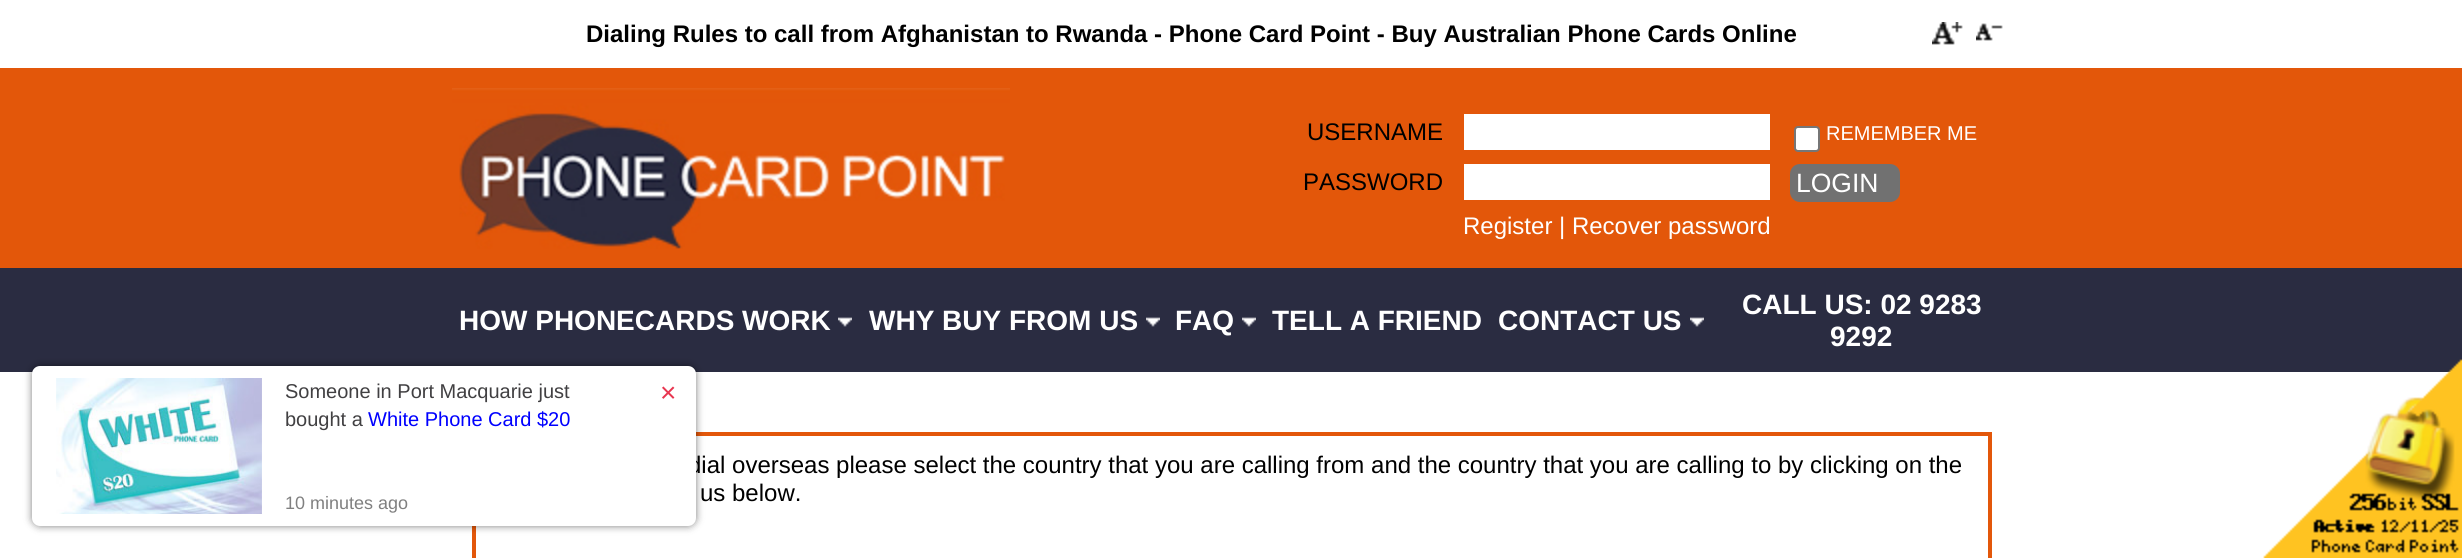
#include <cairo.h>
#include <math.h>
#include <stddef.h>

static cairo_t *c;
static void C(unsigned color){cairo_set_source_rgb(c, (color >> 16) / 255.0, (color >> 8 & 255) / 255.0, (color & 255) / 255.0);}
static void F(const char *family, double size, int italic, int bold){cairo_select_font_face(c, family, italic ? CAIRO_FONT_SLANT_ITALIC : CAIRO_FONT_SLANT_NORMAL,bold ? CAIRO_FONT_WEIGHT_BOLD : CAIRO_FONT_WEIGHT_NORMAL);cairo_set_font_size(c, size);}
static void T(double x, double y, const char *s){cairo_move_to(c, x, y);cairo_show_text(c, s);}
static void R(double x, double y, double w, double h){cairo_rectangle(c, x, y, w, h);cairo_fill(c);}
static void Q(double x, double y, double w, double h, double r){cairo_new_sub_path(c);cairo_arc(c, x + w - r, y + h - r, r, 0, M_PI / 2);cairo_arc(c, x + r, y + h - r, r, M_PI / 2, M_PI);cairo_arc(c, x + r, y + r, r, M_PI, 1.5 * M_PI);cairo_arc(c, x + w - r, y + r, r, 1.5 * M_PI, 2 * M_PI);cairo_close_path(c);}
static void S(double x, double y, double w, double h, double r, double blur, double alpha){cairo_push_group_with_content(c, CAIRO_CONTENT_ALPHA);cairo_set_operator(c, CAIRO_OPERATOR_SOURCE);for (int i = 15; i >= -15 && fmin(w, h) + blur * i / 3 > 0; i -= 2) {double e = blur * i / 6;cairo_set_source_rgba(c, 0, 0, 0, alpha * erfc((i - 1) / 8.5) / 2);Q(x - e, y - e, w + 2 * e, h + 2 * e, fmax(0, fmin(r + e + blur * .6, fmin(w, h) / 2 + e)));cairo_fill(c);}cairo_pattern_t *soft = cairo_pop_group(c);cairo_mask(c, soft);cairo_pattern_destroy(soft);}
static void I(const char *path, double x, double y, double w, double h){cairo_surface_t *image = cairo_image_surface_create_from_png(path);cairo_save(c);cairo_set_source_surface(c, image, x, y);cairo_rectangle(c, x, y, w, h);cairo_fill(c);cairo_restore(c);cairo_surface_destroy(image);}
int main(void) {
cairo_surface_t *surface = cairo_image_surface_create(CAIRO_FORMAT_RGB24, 2462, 558);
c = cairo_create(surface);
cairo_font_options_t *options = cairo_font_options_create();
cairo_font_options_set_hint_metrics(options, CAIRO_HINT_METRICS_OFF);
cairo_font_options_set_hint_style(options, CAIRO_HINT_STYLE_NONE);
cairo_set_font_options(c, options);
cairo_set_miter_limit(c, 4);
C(0xffffff);
cairo_paint(c);
F("Liberation Sans",24,0,1);
C(0x000000);
T(586,42,"Dialing Rules to call from Afghanistan to Rwanda - Phone Card Point - Buy Australian Phone Cards Online");
I("1.png",1932,22,31,23);
I("2.png",1976,23,27,18);
C(0xe3570a);
R(0,68,2462,200);
I("3.png",452,88,558,161);
F("Liberation Sans",24,0,0);
C(0x000000);
T(1307,140,"USERNAME");
C(0xffffff);
R(1464,114,306,36);
Q(1795,127,24,24,3);
cairo_fill_preserve(c);
C(0x767676);
cairo_stroke(c);
F("Liberation Sans",20,0,0);
C(0xffffff);
T(1826,140,"REMEMBER ME");
F("Liberation Sans",24,0,0);
C(0x000000);
T(1303,190,"PASSWORD");
C(0xffffff);
R(1464,164,306,36);
C(0x717171);
Q(1790,164,110,38,10);
cairo_fill(c);
F("Liberation Sans",26.5,0,0);
C(0xffffff);
T(1796,192,"LOGIN");
F("Liberation Sans",24,0,0);
T(1463,234,"Register | Recover password");
C(0x2a2c41);
R(0,268,2462,104);
F("Liberation Sans",28,0,1);
C(0xffffff);
T(459,330,"HOW PHONECARDS WORK");
I("4.png",838,317,14,10);
T(869,330,"WHY BUY FROM US");
I("4.png",1146,317,14,10);
T(1175,330,"FAQ");
I("4.png",1242,317,14,10);
T(1272,330,"TELL A FRIEND");
T(1498,330,"CONTACT US");
I("4.png",1690,317,14,10);
T(1742,314,"CALL US: 02 9283");
T(1830,346,"9292");
cairo_rectangle(c,474,434,1516,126);
C(0xe3570a);
cairo_set_line_width(c,4);
cairo_stroke(c);
C(0x000000);
S(32,366,664,160,8,4,.5);
F("Liberation Sans",24,0,0);
C(0x000000);
T(688,473,"dial overseas please select the country that you are calling from and the country that you are calling to by clicking on the");
C(0xffffff);
Q(32,366,664,160,8);
cairo_fill(c);
I("5.png",56,378,206,136);
F("Liberation Sans",20,0,0);
C(0x414042);
T(285,398,"Someone in Port Macquarie just");
T(285,426,"bought a");
C(0x0000ff);
T(368,426,"White Phone Card $20");
F("Liberation Sans",28,0,0);
C(0xe83650);
T(660,402,"×");
F("Liberation Sans",18,0,0);
C(0x808080);
T(285,509,"10 minutes ago");
F("Liberation Sans",24,0,0);
C(0x000000);
T(700,501,"us below.");
I("6.png",2263,359,199,199);
cairo_surface_write_to_png(surface, "o.png");
cairo_font_options_destroy(options);
cairo_destroy(c);
cairo_surface_destroy(surface);
return 0;
}
